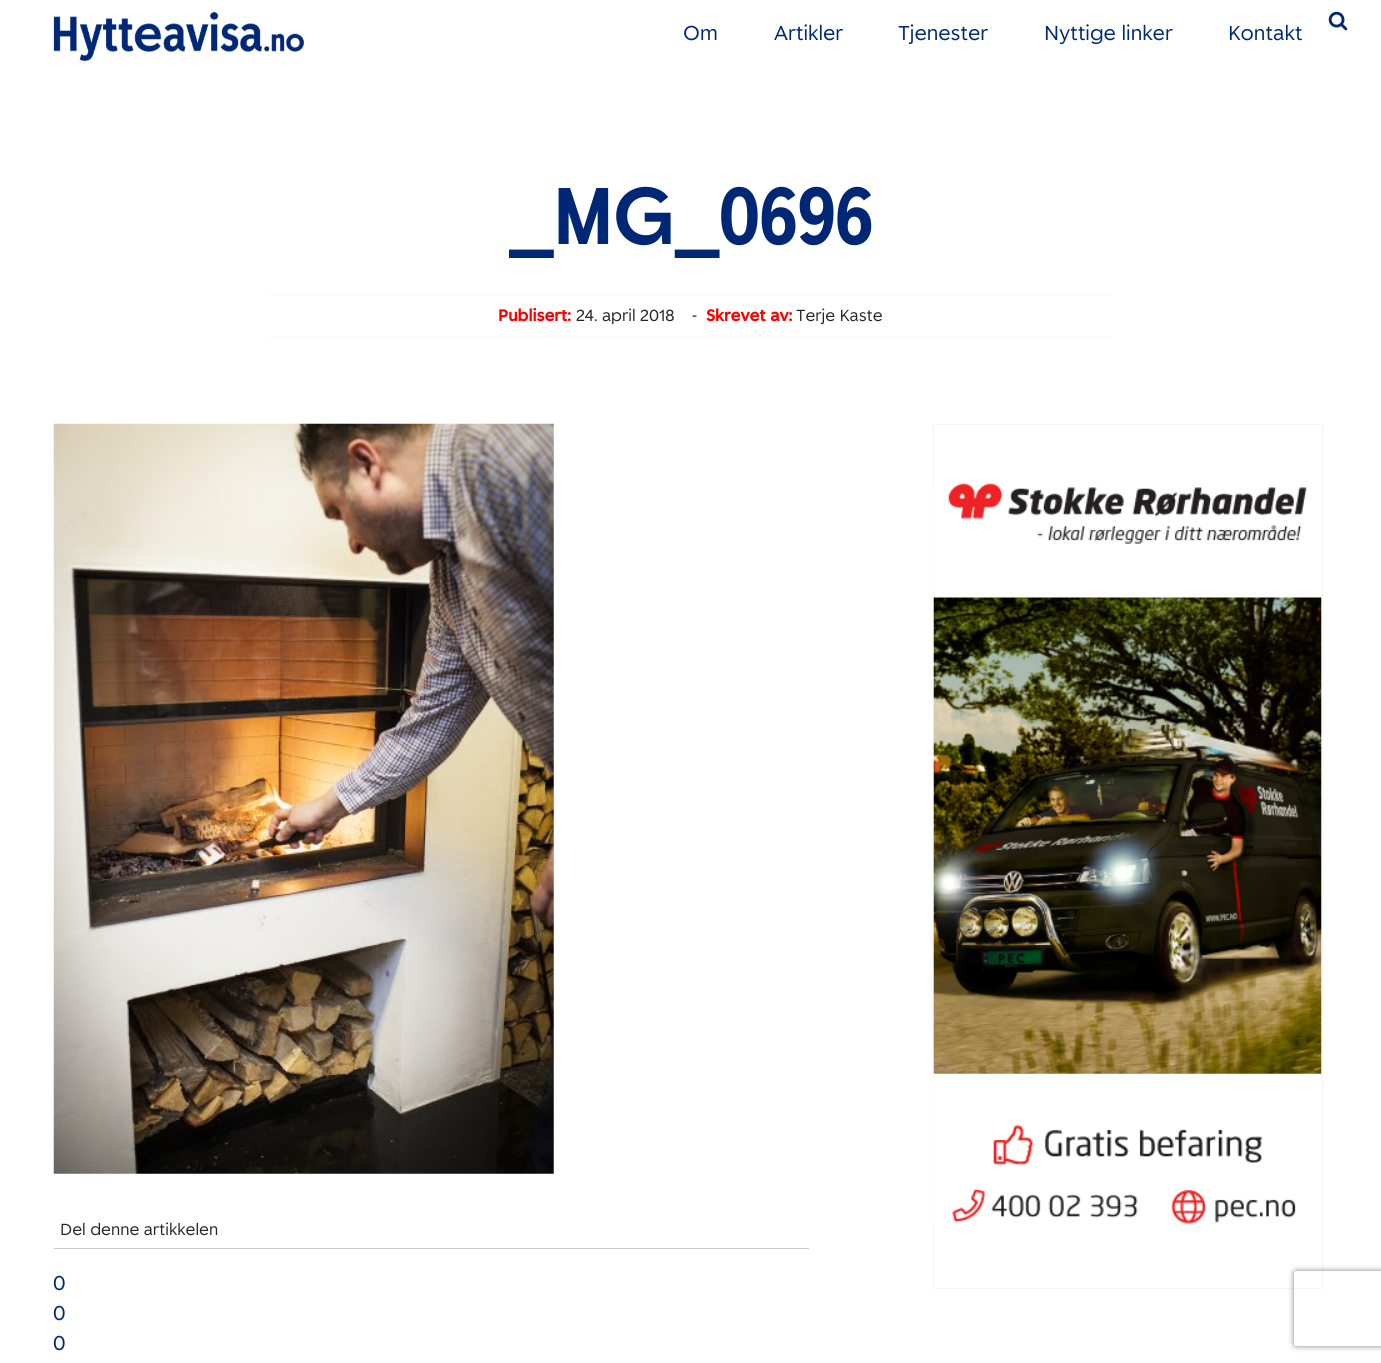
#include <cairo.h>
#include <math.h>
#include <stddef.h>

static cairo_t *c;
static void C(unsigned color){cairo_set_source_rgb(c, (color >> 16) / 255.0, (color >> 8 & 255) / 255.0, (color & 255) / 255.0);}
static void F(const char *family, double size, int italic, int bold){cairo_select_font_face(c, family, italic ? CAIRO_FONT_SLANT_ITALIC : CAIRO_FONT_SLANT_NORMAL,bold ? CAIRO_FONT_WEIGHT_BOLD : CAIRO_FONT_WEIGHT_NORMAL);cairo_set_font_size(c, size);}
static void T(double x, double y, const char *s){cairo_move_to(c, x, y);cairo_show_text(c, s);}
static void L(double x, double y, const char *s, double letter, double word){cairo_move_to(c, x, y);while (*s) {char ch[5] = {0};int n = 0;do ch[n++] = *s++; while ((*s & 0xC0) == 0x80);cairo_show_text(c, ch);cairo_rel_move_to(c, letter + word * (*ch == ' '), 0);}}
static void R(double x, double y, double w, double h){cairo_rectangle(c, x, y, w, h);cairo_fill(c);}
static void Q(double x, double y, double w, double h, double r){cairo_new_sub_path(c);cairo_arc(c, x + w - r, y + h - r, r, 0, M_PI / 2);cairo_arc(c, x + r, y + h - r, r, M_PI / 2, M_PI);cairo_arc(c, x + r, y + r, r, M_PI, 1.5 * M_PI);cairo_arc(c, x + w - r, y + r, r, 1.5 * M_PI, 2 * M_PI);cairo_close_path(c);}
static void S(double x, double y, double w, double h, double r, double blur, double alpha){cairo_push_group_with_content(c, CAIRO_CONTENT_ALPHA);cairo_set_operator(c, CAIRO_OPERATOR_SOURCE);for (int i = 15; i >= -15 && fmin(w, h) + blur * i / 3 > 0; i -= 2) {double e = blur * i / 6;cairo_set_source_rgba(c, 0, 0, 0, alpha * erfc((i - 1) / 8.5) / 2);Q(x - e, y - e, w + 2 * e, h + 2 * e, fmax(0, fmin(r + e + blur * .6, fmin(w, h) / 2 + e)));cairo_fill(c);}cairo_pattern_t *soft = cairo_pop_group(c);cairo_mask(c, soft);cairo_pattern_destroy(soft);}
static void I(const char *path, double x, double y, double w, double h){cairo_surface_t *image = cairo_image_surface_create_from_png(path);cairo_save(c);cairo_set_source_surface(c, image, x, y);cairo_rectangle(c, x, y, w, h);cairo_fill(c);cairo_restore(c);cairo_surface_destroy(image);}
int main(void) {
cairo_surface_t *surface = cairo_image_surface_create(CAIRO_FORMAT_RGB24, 1381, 1363);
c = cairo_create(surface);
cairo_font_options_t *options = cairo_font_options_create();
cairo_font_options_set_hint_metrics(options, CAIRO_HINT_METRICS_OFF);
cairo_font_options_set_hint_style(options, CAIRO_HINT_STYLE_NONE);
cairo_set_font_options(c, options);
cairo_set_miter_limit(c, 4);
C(0xffffff);
cairo_paint(c);
I("1.png",1328,11,20,20);
I("2.png",53,12,251,49);
F("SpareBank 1",20,0,0);
C(0x002776);
T(683,40,"Om");
T(774,40,"Artikler");
T(898,40,"Tjenester");
T(1044,40,"Nyttige linker");
T(1228,40,"Kontakt");
F("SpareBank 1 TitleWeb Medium",80,0,0);
L(509,244,"_MG_0696",-.75,0);
cairo_new_path(c);
cairo_move_to(c,269,294.5);
cairo_line_to(c,1112.5,294.5);
C(0xf7f5ea);
cairo_set_line_width(c,1.2);
cairo_set_dash(c,(double[]){1.25,1.25},2,0);
cairo_stroke(c);
cairo_new_path(c);
cairo_move_to(c,269,337);
cairo_line_to(c,1112.5,337);
cairo_stroke(c);
F("SpareBank 1",16,0,1);
C(0xff0000);
T(498,321,"Publisert:");
F("SpareBank 1",16,0,0);
C(0x262626);
T(576,321,"24. april 2018    -");
F("SpareBank 1",16,0,1);
C(0xff0000);
T(706,321,"Skrevet av:");
F("SpareBank 1",16,0,0);
C(0x262626);
T(796,321,"Terje Kaste");
I("3.png",53,423,501,751);
C(0xcccccc);
R(54,1248,755,1);
C(0x262626);
T(60,1235,"Del denne artikkelen");
F("SpareBank 1",20,0,0);
C(0x002776);
T(53,1290,"0");
T(53,1320,"0");
T(53,1350,"0");
cairo_rectangle(c,933.5,424.5,389,864);
C(0xf5f5f5);
cairo_set_line_width(c,1);
cairo_set_dash(c,NULL,0,0);
cairo_stroke(c);
I("4.png",933,483,389,741);
cairo_save(c);
cairo_set_fill_rule(c,CAIRO_FILL_RULE_EVEN_ODD);
cairo_new_path(c);
cairo_move_to(c,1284,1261);
cairo_line_to(c,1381,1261);
cairo_line_to(c,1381,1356);
cairo_line_to(c,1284,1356);
cairo_close_path(c);
cairo_move_to(c,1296.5,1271);
cairo_line_to(c,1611.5,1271);
cairo_curve_to(c,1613,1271,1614,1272,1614,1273.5);
cairo_line_to(c,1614,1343.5);
cairo_curve_to(c,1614,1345,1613,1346,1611.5,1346);
cairo_line_to(c,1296.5,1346);
cairo_curve_to(c,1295,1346,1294,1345,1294,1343.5);
cairo_line_to(c,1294,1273.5);
cairo_curve_to(c,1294,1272,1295,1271,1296.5,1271);
cairo_close_path(c);
cairo_clip(c);
C(0x808080);
S(1294,1271,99,75,2.5,3,1);
cairo_restore(c);
cairo_surface_write_to_png(surface, "o.png");
cairo_font_options_destroy(options);
cairo_destroy(c);
cairo_surface_destroy(surface);
return 0;
}
